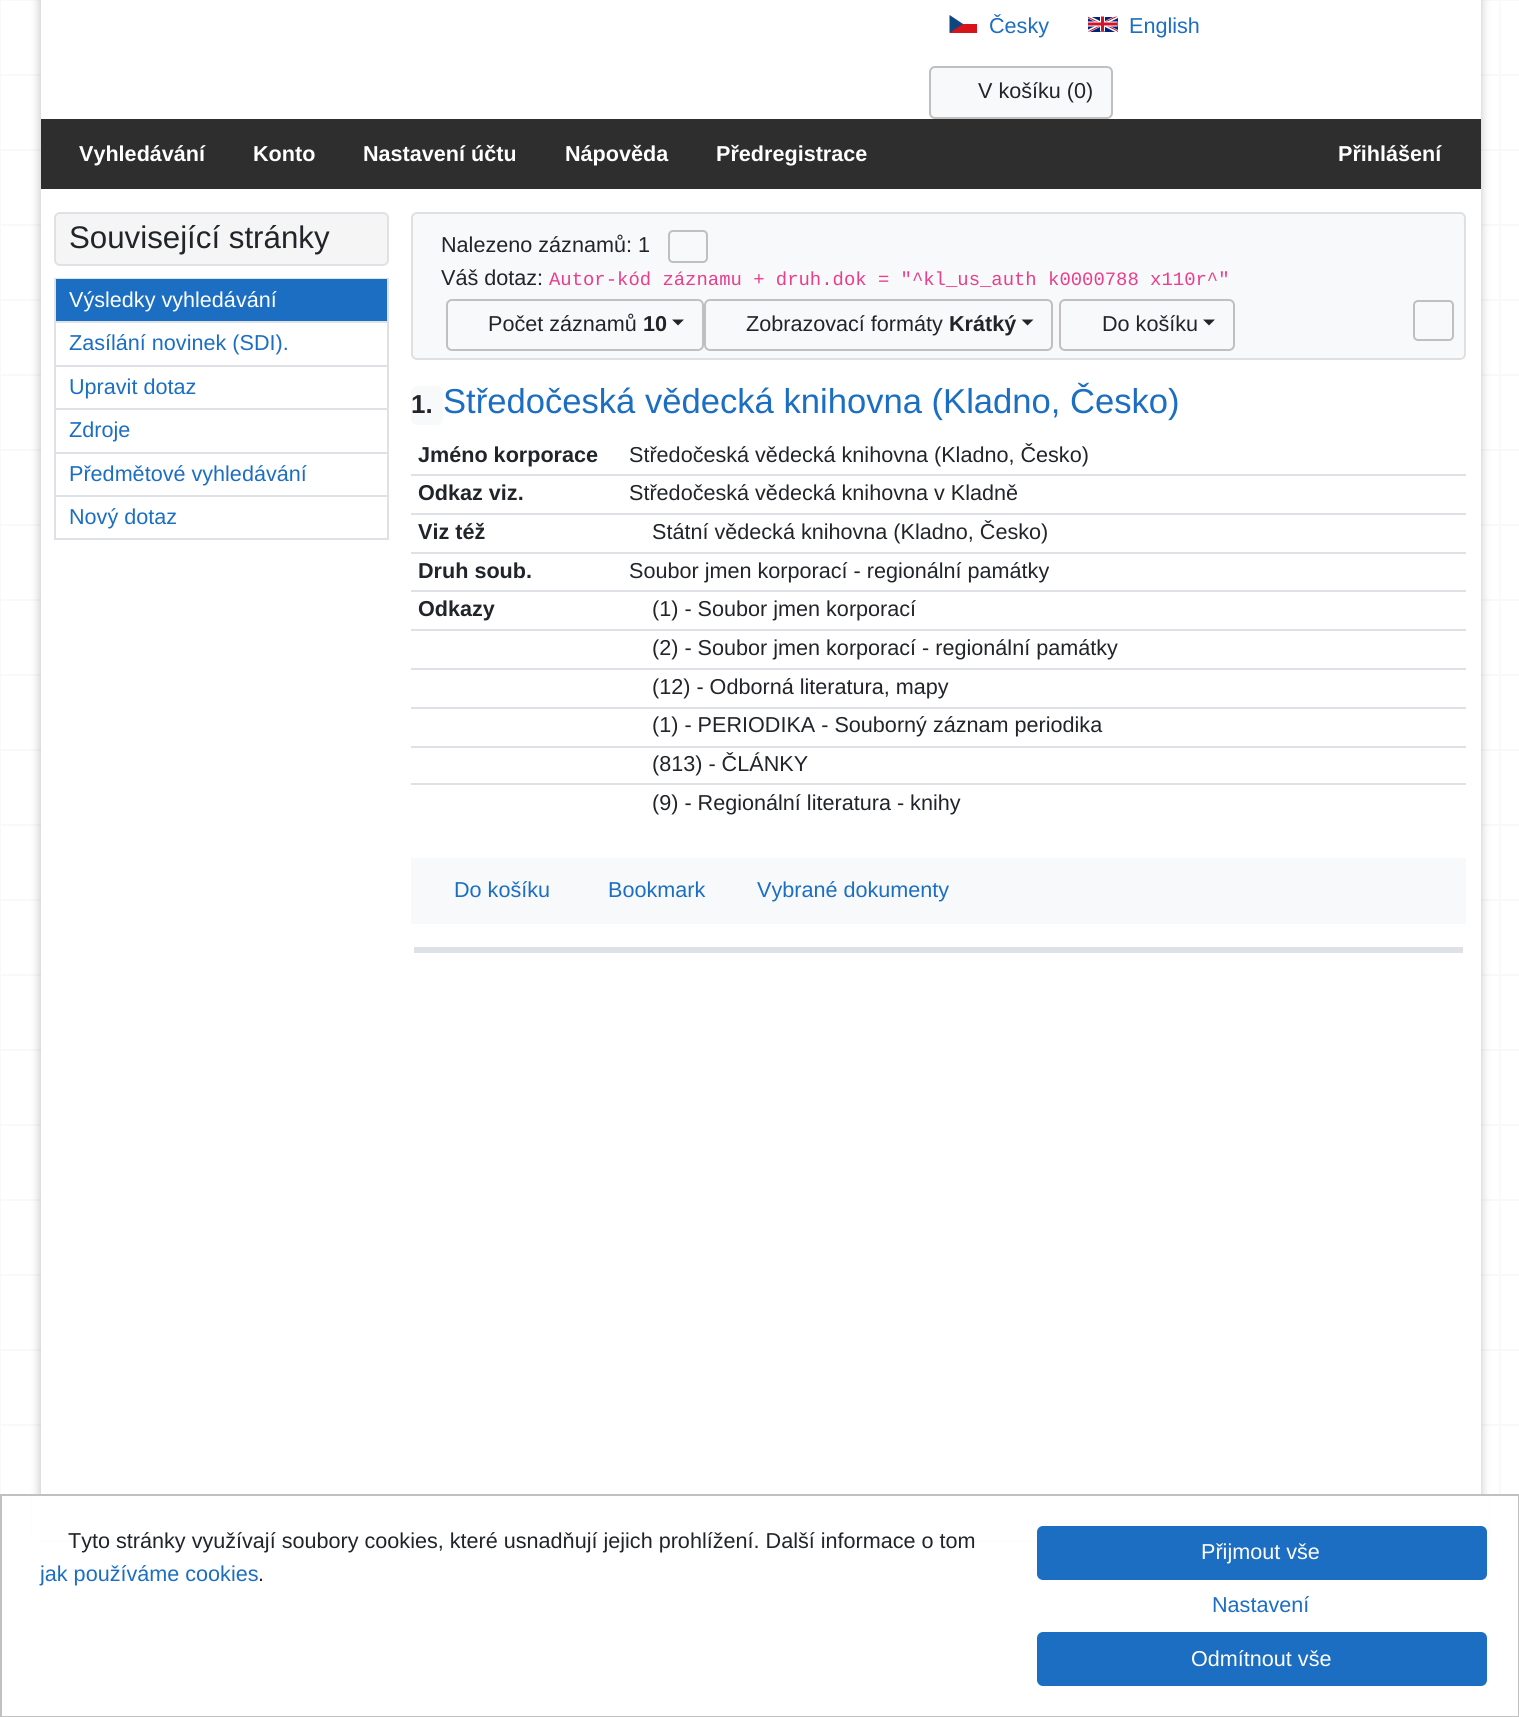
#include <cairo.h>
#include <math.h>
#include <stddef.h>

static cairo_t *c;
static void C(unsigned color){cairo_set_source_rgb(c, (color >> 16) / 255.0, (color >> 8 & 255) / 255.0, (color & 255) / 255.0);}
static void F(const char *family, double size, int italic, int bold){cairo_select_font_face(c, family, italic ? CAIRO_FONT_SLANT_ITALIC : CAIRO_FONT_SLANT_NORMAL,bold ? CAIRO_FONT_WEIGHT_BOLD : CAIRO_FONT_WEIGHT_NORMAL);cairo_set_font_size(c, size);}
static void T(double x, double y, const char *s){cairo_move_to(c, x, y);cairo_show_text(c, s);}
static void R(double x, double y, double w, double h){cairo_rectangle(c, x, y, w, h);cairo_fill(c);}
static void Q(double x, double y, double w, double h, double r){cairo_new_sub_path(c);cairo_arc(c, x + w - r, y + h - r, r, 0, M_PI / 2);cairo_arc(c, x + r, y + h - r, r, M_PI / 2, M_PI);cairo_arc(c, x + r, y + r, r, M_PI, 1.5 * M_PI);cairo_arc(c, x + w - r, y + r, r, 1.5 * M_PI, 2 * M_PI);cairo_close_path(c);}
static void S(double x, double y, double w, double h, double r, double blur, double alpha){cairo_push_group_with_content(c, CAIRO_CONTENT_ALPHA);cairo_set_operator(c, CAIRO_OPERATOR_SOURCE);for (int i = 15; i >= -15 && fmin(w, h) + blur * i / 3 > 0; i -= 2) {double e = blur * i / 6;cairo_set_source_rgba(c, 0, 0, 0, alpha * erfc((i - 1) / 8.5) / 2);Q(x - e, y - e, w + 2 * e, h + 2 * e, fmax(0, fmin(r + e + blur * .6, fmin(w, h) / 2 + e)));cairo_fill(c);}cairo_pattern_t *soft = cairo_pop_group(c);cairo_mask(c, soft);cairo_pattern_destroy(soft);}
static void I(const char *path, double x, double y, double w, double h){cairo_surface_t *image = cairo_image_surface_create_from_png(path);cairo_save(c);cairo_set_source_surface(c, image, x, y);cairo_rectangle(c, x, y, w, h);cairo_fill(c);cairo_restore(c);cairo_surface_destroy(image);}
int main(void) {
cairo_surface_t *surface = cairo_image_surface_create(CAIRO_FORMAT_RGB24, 1519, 1717);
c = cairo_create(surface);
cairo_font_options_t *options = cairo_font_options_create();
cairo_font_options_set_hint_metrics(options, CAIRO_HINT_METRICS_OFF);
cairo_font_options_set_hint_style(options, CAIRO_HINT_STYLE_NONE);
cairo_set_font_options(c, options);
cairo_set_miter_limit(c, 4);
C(0xffffff);
cairo_paint(c);
I("1.png",0,0,1501,1494);
I("2.png",1,0,1518,1426);
C(0x000000);
S(39,-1,1443,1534,0,4.5,.2);
C(0xffffff);
R(41,0,1440,1494);
C(0xd7141a);
R(950,24,27,9);
C(0x11457e);
cairo_new_path(c);
cairo_move_to(c,963,24);
cairo_line_to(c,949.5,15);
cairo_line_to(c,949.5,33);
cairo_close_path(c);
cairo_fill(c);
F("Liberation Sans",21.6,0,0);
C(0x1b6ec2);
T(989,33,"Česky");
I("3.png",1088,16,30,16);
T(1129,33,"English");
C(0xf8f9fa);
Q(930,67,182,51,5);
cairo_fill_preserve(c);
C(0xc0c0c0);
cairo_stroke(c);
C(0x212529);
T(978,98,"V košíku (0)");
C(0x2e2e2e);
R(41,119,1440,70);
F("Liberation Sans",21.6,0,1);
C(0xffffff);
T(79,161,"Vyhledávání");
T(253,161,"Konto");
T(363,161,"Nastavení účtu");
T(565,161,"Nápověda");
T(716,161,"Předregistrace");
T(1338,161,"Přihlášení");
C(0xf5f5f5);
Q(55,213,333,52,5);
cairo_fill_preserve(c);
C(0xdee2e6);
cairo_stroke(c);
F("Liberation Sans",31.25,0,0);
C(0x212529);
T(69,248,"Související stránky");
C(0xdee2e6);
R(54,278,335,1);
R(387,278,2,43);
R(54,278,2,43);
C(0x1b6ec2);
R(56,279,331,42);
F("Liberation Sans",21.6,0,0);
C(0xffffff);
T(69,307,"Výsledky vyhledávání");
C(0xdee2e6);
R(54,321,335,2);
R(387,321,2,44);
R(54,321,2,44);
C(0x1b6ec2);
T(69,350,"Zasílání novinek (SDI).");
C(0xdee2e6);
R(54,365,335,2);
R(387,365,2,43);
R(54,365,2,43);
C(0x1b6ec2);
T(69,394,"Upravit dotaz");
C(0xdee2e6);
R(54,408,335,2);
R(387,408,2,44);
R(54,408,2,44);
C(0x1b6ec2);
T(69,437,"Zdroje");
C(0xdee2e6);
R(54,452,335,2);
R(387,452,2,43);
R(54,452,2,43);
C(0x1b6ec2);
T(69,481,"Předmětové vyhledávání");
cairo_rectangle(c,55,496,333,43);
C(0xdee2e6);
cairo_stroke(c);
C(0x1b6ec2);
T(69,524,"Nový dotaz");
C(0xf8f9fa);
Q(412,213,1053,146,5);
cairo_fill_preserve(c);
C(0xdfe0e1);
cairo_stroke(c);
C(0x212529);
T(441,252,"Nalezeno záznamů: 1");
Q(669,231,38,31,4);
C(0xc0c0c0);
cairo_stroke(c);
C(0x212529);
T(441,285,"Váš dotaz:");
F("Liberation Mono",18.9,0,0);
C(0xe83e8c);
T(549,285,"Autor-kód záznamu + druh.dok = \"^kl_us_auth k0000788 x110r^\"");
Q(447,300,256,50,5);
C(0xc0c0c0);
cairo_stroke(c);
F("Liberation Sans",21.6,0,0);
C(0x212529);
T(488,331,"Počet záznamů");
F("Liberation Sans",21.6,0,1);
T(643,331,"10");
cairo_new_path(c);
cairo_move_to(c,672,319.5);
cairo_line_to(c,684,319.5);
cairo_line_to(c,678,325.5);
cairo_close_path(c);
cairo_fill(c);
Q(705,300,347,50,5);
C(0xc0c0c0);
cairo_stroke(c);
F("Liberation Sans",21.6,0,0);
C(0x212529);
T(746,331,"Zobrazovací formáty");
F("Liberation Sans",21.6,0,1);
T(949,331,"Krátký");
cairo_new_path(c);
cairo_move_to(c,1021.5,319.5);
cairo_line_to(c,1033.5,319.5);
cairo_line_to(c,1027.5,325.5);
cairo_close_path(c);
cairo_fill(c);
Q(1060,300,174,50,5);
C(0xc0c0c0);
cairo_stroke(c);
F("Liberation Sans",21.6,0,0);
C(0x212529);
T(1102,331,"Do košíku");
cairo_new_path(c);
cairo_move_to(c,1203,319.5);
cairo_line_to(c,1215,319.5);
cairo_line_to(c,1209,325.5);
cairo_close_path(c);
cairo_fill(c);
Q(1414,301,39,39,4);
C(0xc0c0c0);
cairo_stroke(c);
C(0xdee2e6);
R(414,947,1049,6);
C(0xf8f9fa);
Q(411,386,32,39,6);
cairo_fill(c);
F("Liberation Sans",26,0,1);
C(0x212529);
T(411,413,"1.");
F("Liberation Sans",34.6,0,0);
C(0x1b6ec2);
T(443,413,"Středočeská vědecká knihovna (Kladno, Česko)");
F("Liberation Sans",21.6,0,1);
C(0x212529);
T(418,462,"Jméno korporace");
F("Liberation Sans",21.6,0,0);
T(629,462,"Středočeská vědecká knihovna (Kladno, Česko)");
F("Liberation Sans",21.6,0,1);
T(418,500,"Odkaz viz.");
C(0xdee2e6);
R(411,474,1055,2);
F("Liberation Sans",21.6,0,0);
C(0x212529);
T(629,500,"Středočeská vědecká knihovna v Kladně");
F("Liberation Sans",21.6,0,1);
T(418,539,"Viz též");
C(0xdee2e6);
R(411,513,1055,2);
F("Liberation Sans",21.6,0,0);
C(0x212529);
T(652,539,"Státní vědecká knihovna (Kladno, Česko)");
F("Liberation Sans",21.6,0,1);
T(418,578,"Druh soub.");
C(0xdee2e6);
R(411,552,1055,2);
F("Liberation Sans",21.6,0,0);
C(0x212529);
T(629,578,"Soubor jmen korporací - regionální památky");
F("Liberation Sans",21.6,0,1);
T(418,616,"Odkazy");
C(0xdee2e6);
R(411,590,1055,2);
F("Liberation Sans",21.6,0,0);
C(0x212529);
T(652,616,"(1) - Soubor jmen korporací");
C(0xdee2e6);
R(411,629,1055,2);
C(0x212529);
T(652,655,"(2) - Soubor jmen korporací - regionální památky");
C(0xdee2e6);
R(411,668,1055,2);
C(0x212529);
T(652,694,"(12) - Odborná literatura, mapy");
C(0xdee2e6);
R(411,707,1055,2);
C(0x212529);
T(652,732,"(1) - PERIODIKA - Souborný záznam periodika");
C(0xdee2e6);
R(411,746,1055,2);
C(0x212529);
T(652,771,"(813) - ČLÁNKY");
C(0xdee2e6);
R(411,783,1055,2);
C(0x212529);
T(652,810,"(9) - Regionální literatura - knihy");
C(0xf8f9fa);
R(411,858,1055,66);
C(0x1b6ec2);
T(454,897,"Do košíku");
T(608,897,"Bookmark");
T(757,897,"Vybrané dokumenty");
C(0xffffff);
R(32,1496,1457,44);
cairo_rectangle(c,1,1495,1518,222);
C(0xc0c0c0);
cairo_stroke(c);
C(0x212529);
T(68,1548,"Tyto stránky využívají soubory cookies, které usnadňují jejich prohlížení. Další informace o tom");
C(0x1b6ec2);
T(40,1581,"jak používáme cookies");
C(0x212529);
T(258,1581,".");
C(0x1b6ec2);
Q(1038,1527,448,52,5);
cairo_fill_preserve(c);
cairo_stroke(c);
C(0xffffff);
T(1201,1559,"Přijmout vše");
C(0x1b6ec2);
T(1212,1612,"Nastavení");
Q(1038,1633,448,52,5);
cairo_fill_preserve(c);
cairo_stroke(c);
C(0xffffff);
T(1191,1666,"Odmítnout vše");
cairo_surface_write_to_png(surface, "o.png");
cairo_font_options_destroy(options);
cairo_destroy(c);
cairo_surface_destroy(surface);
return 0;
}
